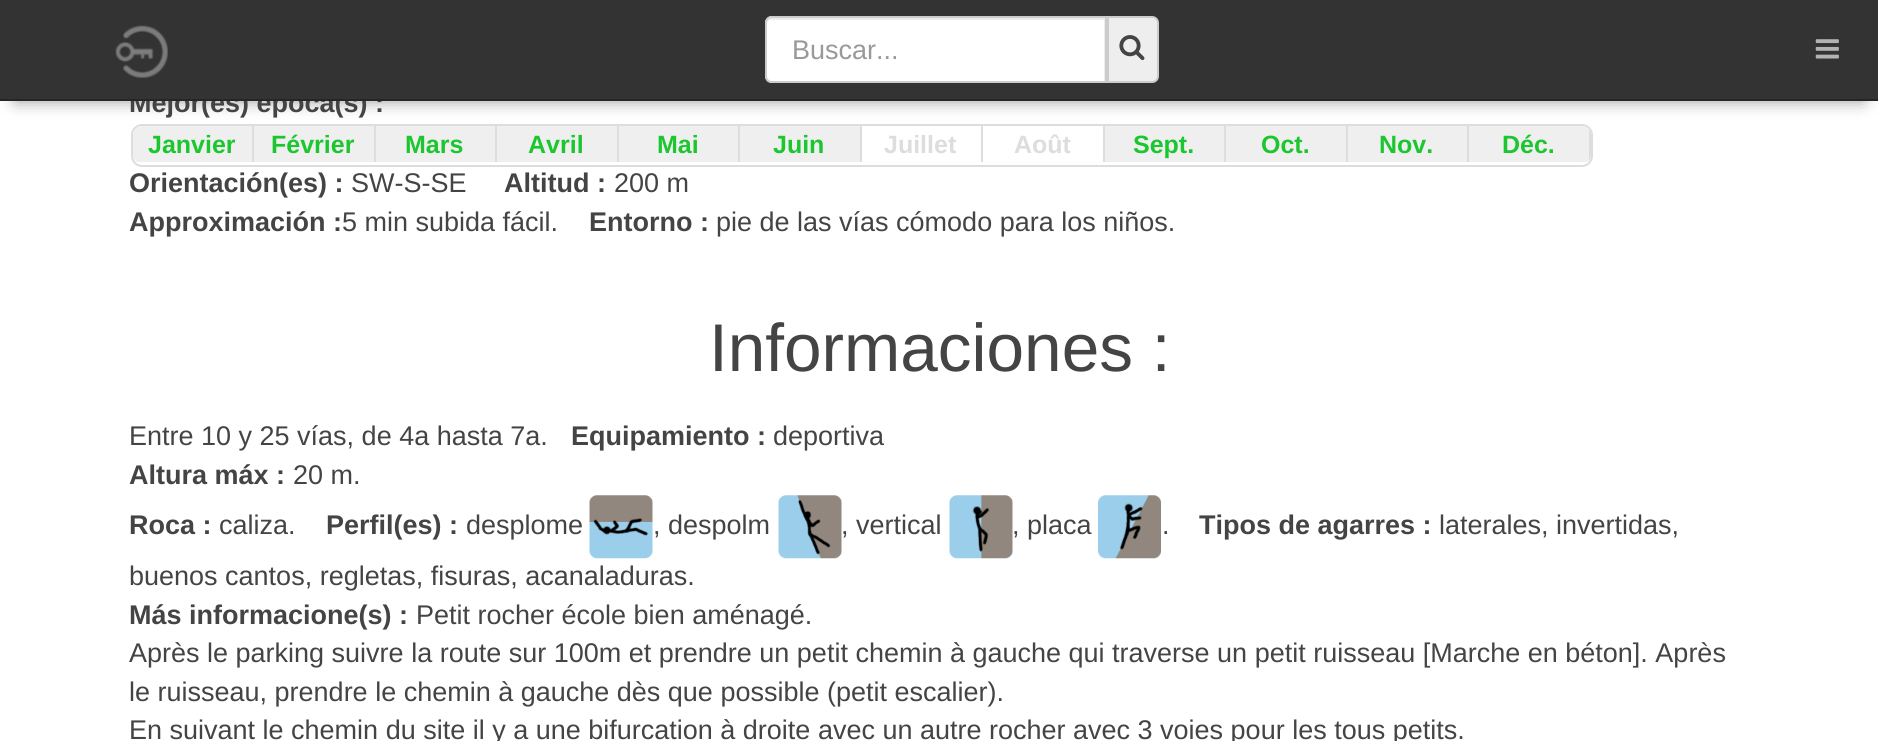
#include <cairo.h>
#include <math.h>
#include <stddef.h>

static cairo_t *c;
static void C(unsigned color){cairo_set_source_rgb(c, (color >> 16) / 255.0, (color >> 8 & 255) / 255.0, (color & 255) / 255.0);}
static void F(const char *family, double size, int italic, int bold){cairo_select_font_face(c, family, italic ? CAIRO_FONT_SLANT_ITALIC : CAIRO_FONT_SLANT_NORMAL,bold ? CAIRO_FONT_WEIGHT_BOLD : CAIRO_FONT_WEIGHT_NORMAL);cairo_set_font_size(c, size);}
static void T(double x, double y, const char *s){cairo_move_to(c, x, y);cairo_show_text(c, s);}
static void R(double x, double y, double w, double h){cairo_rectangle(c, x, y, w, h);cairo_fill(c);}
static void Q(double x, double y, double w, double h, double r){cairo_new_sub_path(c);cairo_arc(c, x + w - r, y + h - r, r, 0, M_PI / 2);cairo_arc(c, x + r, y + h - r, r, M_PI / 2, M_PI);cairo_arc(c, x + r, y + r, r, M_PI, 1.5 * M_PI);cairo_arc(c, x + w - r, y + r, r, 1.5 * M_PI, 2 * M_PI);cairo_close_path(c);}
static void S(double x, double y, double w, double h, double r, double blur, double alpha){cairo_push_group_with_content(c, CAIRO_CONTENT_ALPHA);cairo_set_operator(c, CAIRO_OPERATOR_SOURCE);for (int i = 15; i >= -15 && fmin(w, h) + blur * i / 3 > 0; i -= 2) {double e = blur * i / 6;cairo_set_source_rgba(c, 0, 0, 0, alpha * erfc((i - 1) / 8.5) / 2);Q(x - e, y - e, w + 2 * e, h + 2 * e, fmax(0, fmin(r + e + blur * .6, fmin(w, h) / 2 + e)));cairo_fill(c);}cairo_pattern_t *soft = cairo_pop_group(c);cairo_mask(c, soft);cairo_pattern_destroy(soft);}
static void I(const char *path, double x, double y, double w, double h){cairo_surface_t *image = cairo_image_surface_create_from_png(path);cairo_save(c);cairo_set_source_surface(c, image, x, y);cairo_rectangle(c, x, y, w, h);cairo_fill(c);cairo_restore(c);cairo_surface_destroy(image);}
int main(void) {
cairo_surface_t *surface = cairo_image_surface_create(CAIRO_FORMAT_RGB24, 1878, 741);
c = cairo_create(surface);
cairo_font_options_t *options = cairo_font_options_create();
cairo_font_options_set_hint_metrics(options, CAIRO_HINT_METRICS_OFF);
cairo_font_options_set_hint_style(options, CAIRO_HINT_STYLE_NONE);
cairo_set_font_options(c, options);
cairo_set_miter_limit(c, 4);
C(0xffffff);
cairo_paint(c);
Q(132,125,1460,41,10);
C(0xdddddd);
cairo_stroke(c);
cairo_save(c);
Q(133,126,1458,38,9);
cairo_clip(c);
C(0xefefef);
cairo_new_path(c);
cairo_move_to(c,142,126);
cairo_line_to(c,254,126);
cairo_line_to(c,254,162);
cairo_line_to(c,133,162);
cairo_line_to(c,133,135);
cairo_curve_to(c,133,130,137,126,142,126);
cairo_close_path(c);
cairo_fill(c);
cairo_restore(c);
R(252,126,2,36);
C(0xefefef);
R(254,126,120,36);
C(0xdddddd);
R(374,126,2,36);
C(0xefefef);
R(376,126,119,36);
C(0xdddddd);
R(495,126,2,36);
C(0xefefef);
R(497,126,120,36);
C(0xdddddd);
R(617,126,2,36);
C(0xefefef);
R(619,126,119,36);
C(0xdddddd);
R(738,126,2,36);
C(0xefefef);
R(740,126,120,36);
C(0xdddddd);
R(860,126,2,36);
R(981,126,2,36);
R(1103,126,2,36);
C(0xefefef);
R(1105,126,119,36);
C(0xdddddd);
R(1224,126,2,36);
C(0xefefef);
R(1226,126,120,36);
C(0xdddddd);
R(1346,126,2,36);
C(0xefefef);
R(1348,126,119,36);
C(0xdddddd);
R(1467,126,2,36);
cairo_save(c);
Q(133,126,1458,38,9);
cairo_clip(c);
C(0xefefef);
cairo_new_path(c);
cairo_move_to(c,1469,126);
cairo_line_to(c,1582,126);
cairo_curve_to(c,1587,126,1591,130,1591,135);
cairo_line_to(c,1591,162);
cairo_line_to(c,1469,162);
cairo_close_path(c);
cairo_fill(c);
C(0xdddddd);
R(1589,126,2,36);
cairo_restore(c);
C(0x808080);
S(16,29,1847,70,0,9,1);
F("Liberation Sans",27,0,1);
C(0x444444);
T(129,112,"Mejor(es) época(s) :");
C(0x333333);
R(0,0,1878,99);
C(0x262626);
R(0,99,1878,2);
I("1.png",115,25,53,53);
C(0xffffff);
cairo_new_path(c);
cairo_move_to(c,772,16);
cairo_line_to(c,1107,16);
cairo_line_to(c,1107,83);
cairo_line_to(c,772,83);
cairo_curve_to(c,768,83,765,80,765,76);
cairo_line_to(c,765,23);
cairo_curve_to(c,765,19,768,16,772,16);
cairo_close_path(c);
cairo_fill(c);
C(0xececec);
cairo_new_path(c);
cairo_move_to(c,771,20);
cairo_line_to(c,1104,20);
cairo_line_to(c,1104,81);
cairo_line_to(c,1105,81);
cairo_line_to(c,1105,18);
cairo_line_to(c,772,18);
cairo_curve_to(c,770,18,768,19,767,22);
cairo_curve_to(c,768,21,769,20,771,20);
cairo_close_path(c);
cairo_fill(c);
cairo_new_path(c);
cairo_move_to(c,772,17);
cairo_line_to(c,1106,17);
cairo_line_to(c,1106,82);
cairo_line_to(c,772,82);
cairo_curve_to(c,768.5,82,766,79.5,766,76);
cairo_line_to(c,766,23);
cairo_curve_to(c,766,19.5,768.5,17,772,17);
cairo_close_path(c);
C(0xcccccc);
cairo_stroke(c);
F("Liberation Sans",27,0,0);
C(0x999999);
T(792,59,"Buscar...");
C(0xeeeeee);
cairo_new_path(c);
cairo_move_to(c,1108,17);
cairo_line_to(c,1152,17);
cairo_curve_to(c,1155.5,17,1158,19.5,1158,23);
cairo_line_to(c,1158,76);
cairo_curve_to(c,1158,79.5,1155.5,82,1152,82);
cairo_line_to(c,1108,82);
cairo_close_path(c);
cairo_fill_preserve(c);
C(0xcccccc);
cairo_stroke(c);
I("2.png",1119,35,26,26);
I("3.png",1815,39,24,20);
F("Liberation Sans",25,0,1);
C(0x1bc62f);
T(148,153,"Janvier");
T(271,153,"Février");
T(405,153,"Mars");
T(528,153,"Avril");
T(657,153,"Mai");
T(773,153,"Juin");
C(0xdddddd);
T(884,153,"Juillet");
T(1014,153,"Août");
C(0x1bc62f);
T(1133,153,"Sept.");
T(1261,153,"Oct.");
T(1379,153,"Nov.");
T(1502,153,"Déc.");
F("Liberation Sans",27,0,1);
C(0x444444);
T(129,192,"Orientación(es) :");
F("Liberation Sans",27,0,0);
T(351,192,"SW-S-SE");
F("Liberation Sans",27,0,1);
T(504,192,"Altitud :");
F("Liberation Sans",27,0,0);
T(614,192,"200 m");
F("Liberation Sans",27,0,1);
T(129,231,"Approximación :");
F("Liberation Sans",27,0,0);
T(342,231,"5 min subida fácil.");
F("Liberation Sans",27,0,1);
T(589,231,"Entorno :");
F("Liberation Sans",27,0,0);
T(716,231,"pie de las vías cómodo para los niños.");
F("Liberation Sans",67.5,0,0);
T(709,371,"Informaciones :");
F("Liberation Sans",27,0,0);
T(129,445,"Entre 10 y 25 vías, de 4a hasta 7a.");
F("Liberation Sans",27,0,1);
T(571,445,"Equipamiento :");
F("Liberation Sans",27,0,0);
T(773,445,"deportiva");
F("Liberation Sans",27,0,1);
T(129,484,"Altura máx :");
F("Liberation Sans",27,0,0);
T(293,484,"20 m.");
F("Liberation Sans",27,0,1);
T(129,534,"Roca :");
F("Liberation Sans",27,0,0);
T(219,534,"caliza.");
F("Liberation Sans",27,0,1);
T(326,534,"Perfil(es) :");
F("Liberation Sans",27,0,0);
T(466,534,"desplome");
I("4.png",589,495,64,64);
T(653,534,", despolm");
I("5.png",778,495,64,64);
T(841,534,", vertical");
I("6.png",949,495,64,64);
T(1012,534,", placa");
I("7.png",1098,495,63,64);
T(1162,534,".");
F("Liberation Sans",27,0,1);
T(1199,534,"Tipos de agarres :");
F("Liberation Sans",27,0,0);
T(1439,534,"laterales, invertidas,");
T(129,585,"buenos cantos, regletas, fisuras, acanaladuras.");
F("Liberation Sans",27,0,1);
T(129,624,"Más informacione(s) :");
F("Liberation Sans",27,0,0);
T(416,624,"Petit rocher école bien aménagé.");
T(129,662,"Après le parking suivre la route sur 100m et prendre un petit chemin à gauche qui traverse un petit ruisseau [Marche en béton]. Après");
T(129,701,"le ruisseau, prendre le chemin à gauche dès que possible (petit escalier).");
T(129,739,"En suivant le chemin du site il y a une bifurcation à droite avec un autre rocher avec 3 voies pour les tous petits.");
cairo_surface_write_to_png(surface, "o.png");
cairo_font_options_destroy(options);
cairo_destroy(c);
cairo_surface_destroy(surface);
return 0;
}
